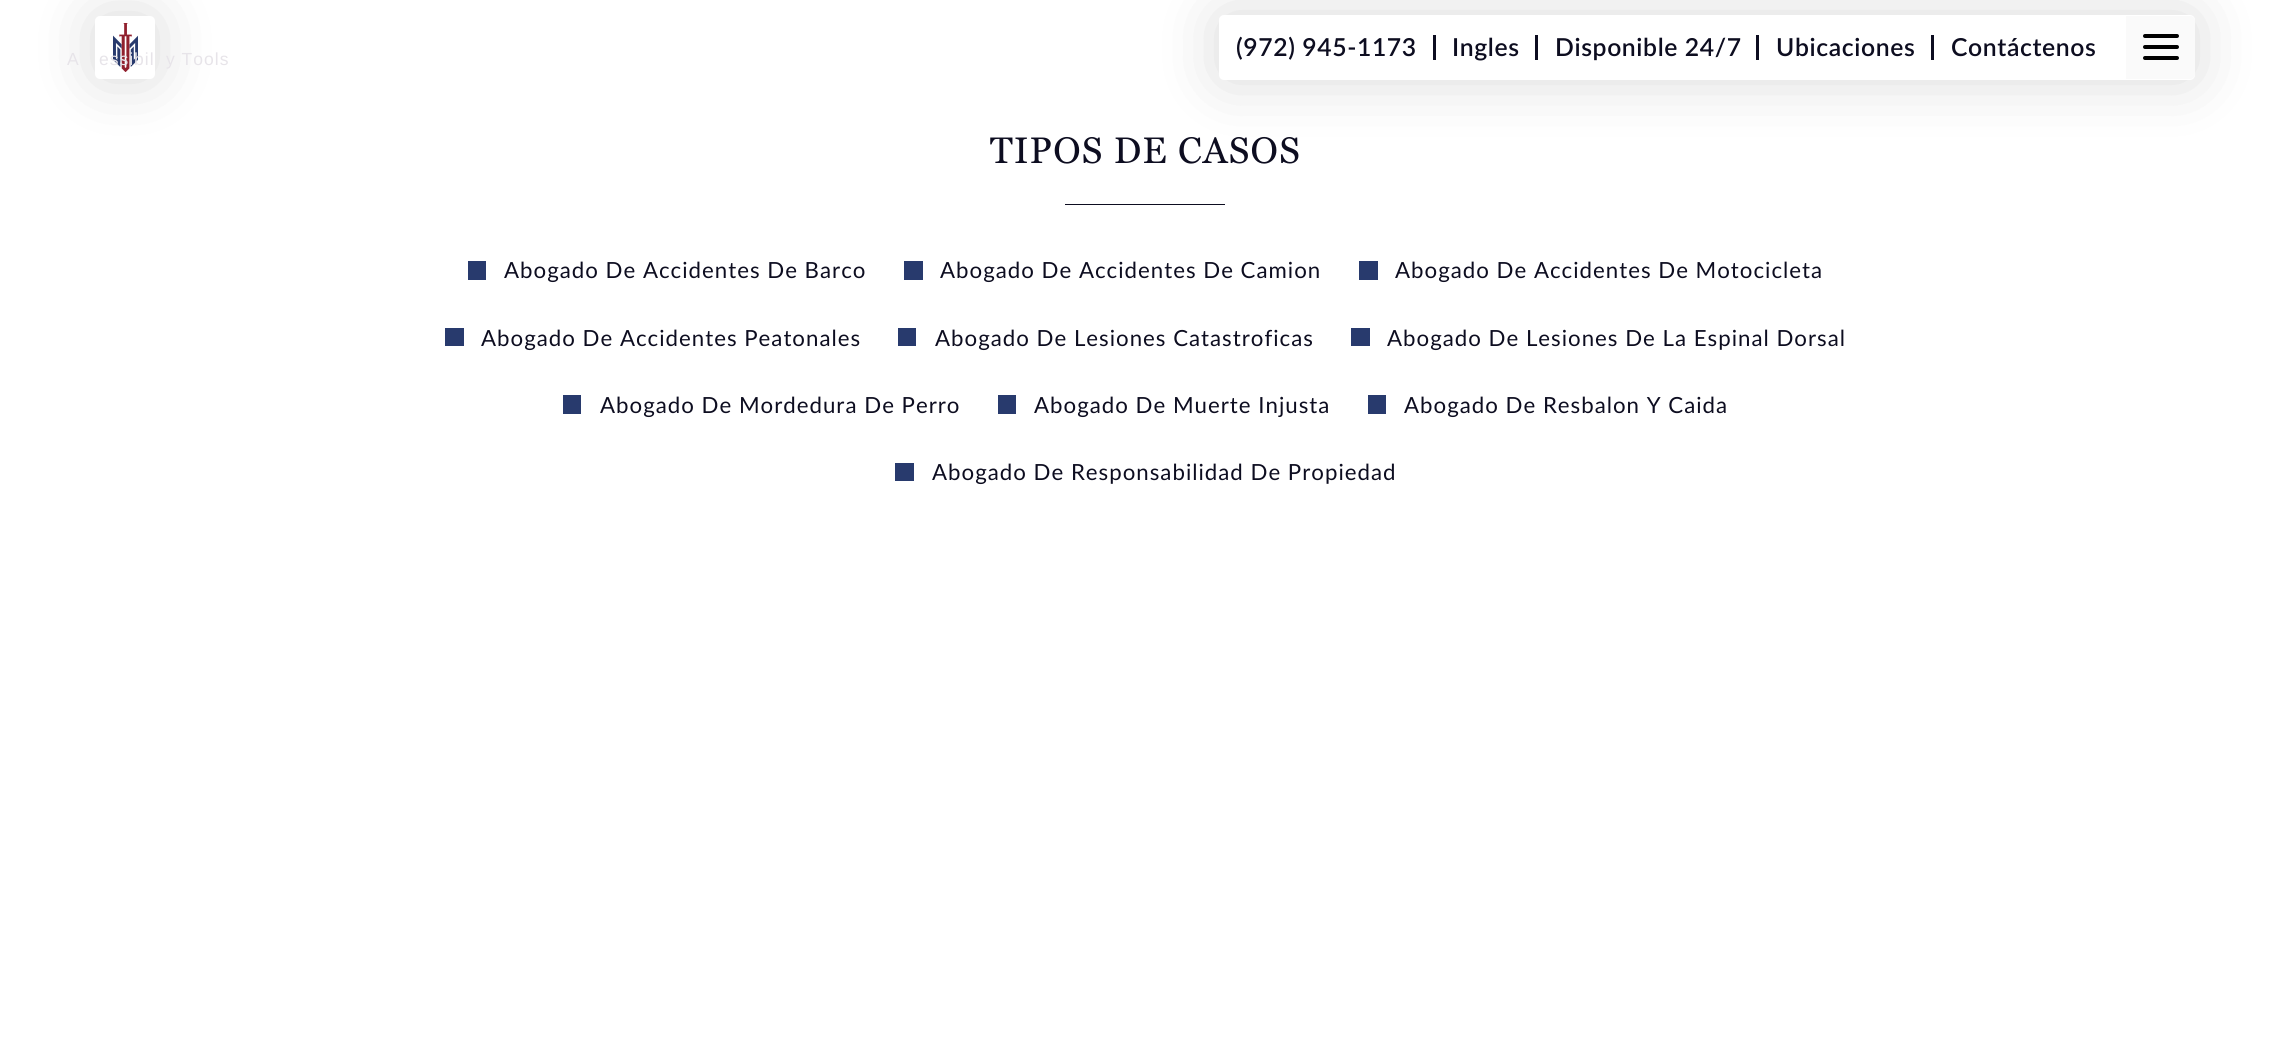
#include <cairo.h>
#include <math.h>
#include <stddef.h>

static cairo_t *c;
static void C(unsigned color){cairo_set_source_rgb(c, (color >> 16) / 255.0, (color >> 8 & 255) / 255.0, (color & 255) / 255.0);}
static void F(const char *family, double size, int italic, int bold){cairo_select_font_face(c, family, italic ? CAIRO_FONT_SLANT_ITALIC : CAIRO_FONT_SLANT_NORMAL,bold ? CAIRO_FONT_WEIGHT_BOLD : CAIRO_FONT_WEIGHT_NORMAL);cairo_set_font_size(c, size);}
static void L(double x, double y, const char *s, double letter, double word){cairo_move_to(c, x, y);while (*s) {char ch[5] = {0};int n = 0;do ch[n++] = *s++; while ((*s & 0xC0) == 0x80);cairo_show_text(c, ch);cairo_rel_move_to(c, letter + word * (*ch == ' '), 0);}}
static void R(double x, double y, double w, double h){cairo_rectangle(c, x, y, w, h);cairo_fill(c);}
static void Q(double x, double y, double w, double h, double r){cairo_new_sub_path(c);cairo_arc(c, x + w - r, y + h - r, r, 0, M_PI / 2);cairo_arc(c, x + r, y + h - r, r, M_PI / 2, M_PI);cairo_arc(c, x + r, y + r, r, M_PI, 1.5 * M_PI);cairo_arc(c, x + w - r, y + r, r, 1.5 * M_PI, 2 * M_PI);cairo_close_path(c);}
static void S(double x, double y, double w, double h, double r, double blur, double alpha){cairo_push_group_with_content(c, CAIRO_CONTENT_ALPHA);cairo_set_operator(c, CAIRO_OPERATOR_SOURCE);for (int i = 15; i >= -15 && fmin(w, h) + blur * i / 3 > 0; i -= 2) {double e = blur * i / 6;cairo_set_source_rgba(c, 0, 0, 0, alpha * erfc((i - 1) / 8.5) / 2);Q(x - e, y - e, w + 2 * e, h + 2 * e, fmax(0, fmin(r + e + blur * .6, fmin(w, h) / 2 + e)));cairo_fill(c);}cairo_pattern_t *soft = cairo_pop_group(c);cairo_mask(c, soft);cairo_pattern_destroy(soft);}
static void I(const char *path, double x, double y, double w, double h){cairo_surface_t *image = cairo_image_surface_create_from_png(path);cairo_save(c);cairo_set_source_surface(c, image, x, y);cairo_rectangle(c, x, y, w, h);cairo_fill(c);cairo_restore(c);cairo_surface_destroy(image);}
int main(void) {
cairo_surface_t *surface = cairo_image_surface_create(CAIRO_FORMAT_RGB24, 2290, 1041);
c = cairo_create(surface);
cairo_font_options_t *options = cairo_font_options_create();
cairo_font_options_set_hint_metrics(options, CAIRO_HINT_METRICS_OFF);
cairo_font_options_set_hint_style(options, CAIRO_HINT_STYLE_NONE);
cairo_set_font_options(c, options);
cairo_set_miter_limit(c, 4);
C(0xffffff);
cairo_paint(c);
C(0x000000);
S(95,16,60,63,5,31,.15);
F("Liberation Sans",17.5,0,0);
C(0xe7e4e9);
L(67,65,"A",1,0);
C(0xffffff);
Q(95,16,60,63,5);
cairo_fill(c);
I("1.png",113,23,25,49);
C(0xe7e4e9);
L(99,65,"essibil",1,0);
L(166,65,"y Tools",1,0);
C(0x000000);
S(1219,15,976,65,5,31,.15);
C(0xffffff);
Q(1219,15,976,65,5);
cairo_fill(c);
F("Lato SemiBold",24.75,0,0);
C(0x0d0d20);
L(1236,56,"(972) 945-1173",.6,0);
R(1433,35,3,25);
L(1452,56,"Ingles",.6,0);
R(1535,35,3,25);
L(1555,56,"Disponible 24/7",.6,0);
R(1756,35,3,25);
L(1776,56,"Ubicaciones",.6,0);
R(1931,35,3,25);
L(1951,56,"Contáctenos",.6,0);
C(0xfafafa);
cairo_new_path(c);
cairo_move_to(c,2126,16);
cairo_line_to(c,2190,16);
cairo_curve_to(c,2193,16,2195,18,2195,21);
cairo_line_to(c,2195,74);
cairo_curve_to(c,2195,77,2193,79,2190,79);
cairo_line_to(c,2126,79);
cairo_close_path(c);
cairo_fill(c);
C(0x000000);
Q(2143,34,36,4,2);
cairo_fill(c);
Q(2143,45,36,4,2);
cairo_fill(c);
Q(2143,56,36,4,2);
cairo_fill(c);
F("Georgia",36.75,0,0);
C(0x0d0d20);
L(990,163,"TIPOS DE CASOS",1.25,0);
R(1065,204,160,1);
C(0x283a6d);
R(468,261,18,19);
F("Lato",22.25,0,0);
C(0x0d0d20);
L(504,278,"Abogado De Accidentes De Barco",1,0);
C(0x283a6d);
R(904,261,19,19);
C(0x0d0d20);
L(940,278,"Abogado De Accidentes De Camion",1,0);
C(0x283a6d);
R(1359,261,19,19);
C(0x0d0d20);
L(1395,278,"Abogado De Accidentes De Motocicleta",1,0);
C(0x283a6d);
R(445,328,19,18);
C(0x0d0d20);
L(481,346,"Abogado De Accidentes Peatonales",1,0);
C(0x283a6d);
R(898,328,18,18);
C(0x0d0d20);
L(935,346,"Abogado De Lesiones Catastroficas",1,0);
C(0x283a6d);
R(1351,328,19,18);
C(0x0d0d20);
L(1387,346,"Abogado De Lesiones De La Espinal Dorsal",1,0);
C(0x283a6d);
R(563,395,18,19);
C(0x0d0d20);
L(600,413,"Abogado De Mordedura De Perro",1,0);
C(0x283a6d);
R(998,395,18,19);
C(0x0d0d20);
L(1034,413,"Abogado De Muerte Injusta",1,0);
C(0x283a6d);
R(1368,395,18,19);
C(0x0d0d20);
L(1404,413,"Abogado De Resbalon Y Caida",1,0);
C(0x283a6d);
R(895,463,19,18);
C(0x0d0d20);
L(932,480,"Abogado De Responsabilidad De Propiedad",1,0);
cairo_surface_write_to_png(surface, "o.png");
cairo_font_options_destroy(options);
cairo_destroy(c);
cairo_surface_destroy(surface);
return 0;
}
